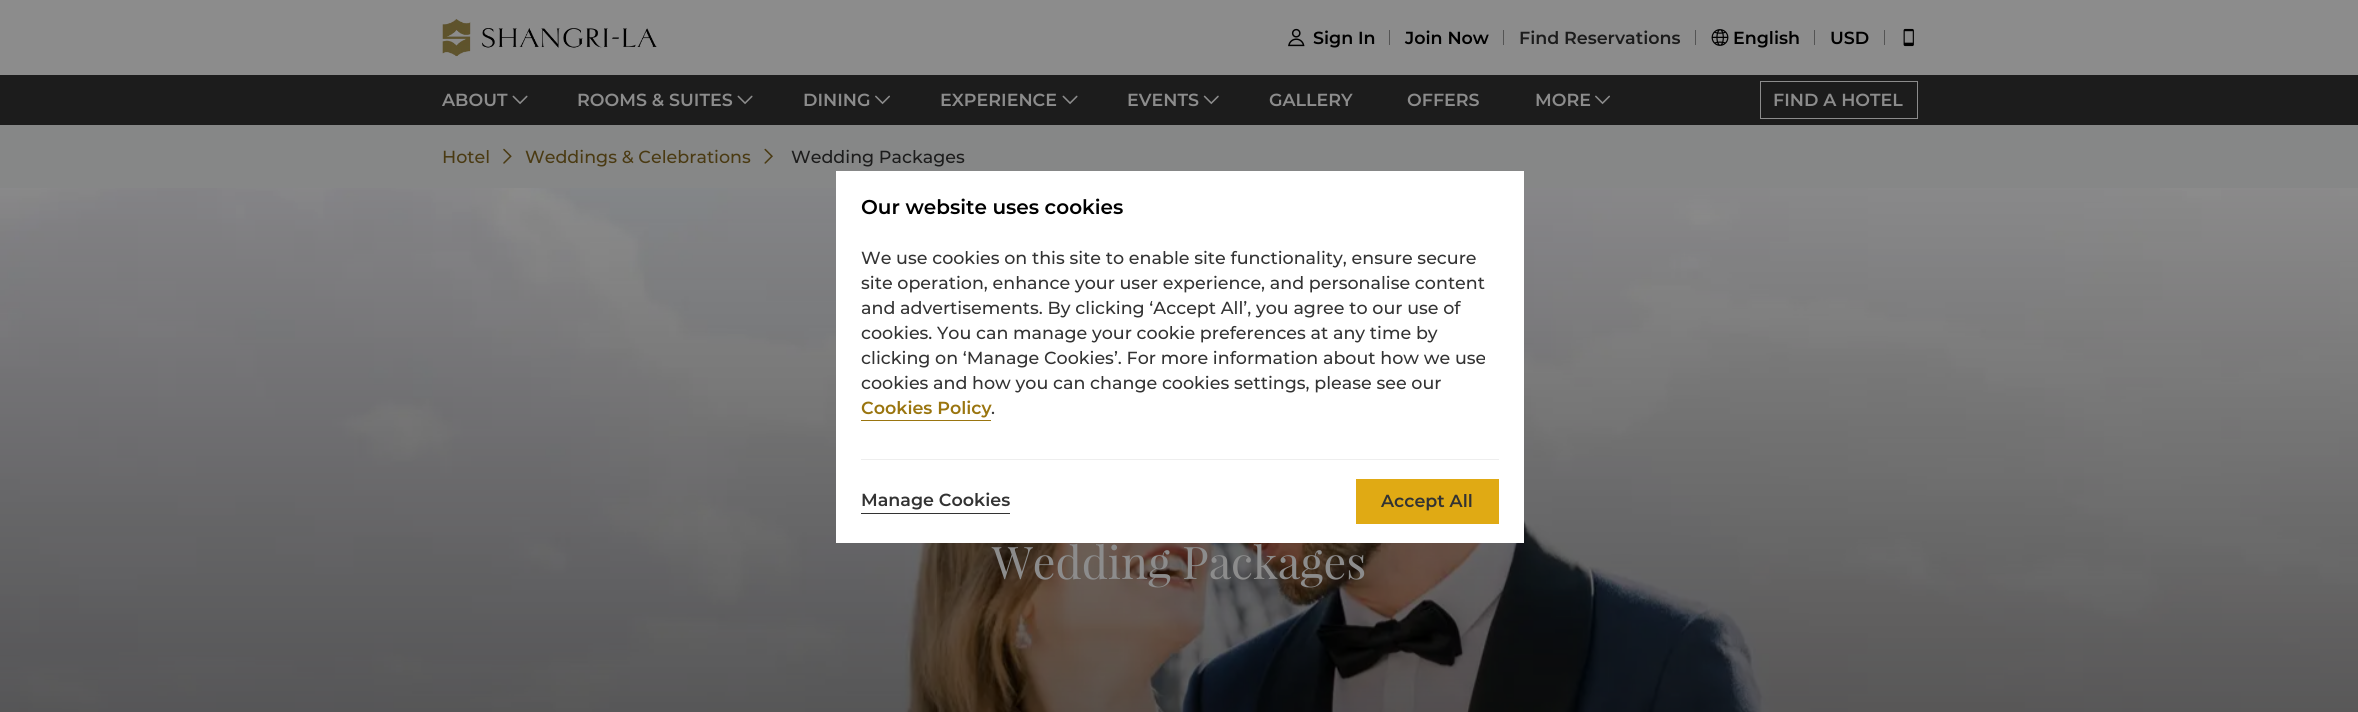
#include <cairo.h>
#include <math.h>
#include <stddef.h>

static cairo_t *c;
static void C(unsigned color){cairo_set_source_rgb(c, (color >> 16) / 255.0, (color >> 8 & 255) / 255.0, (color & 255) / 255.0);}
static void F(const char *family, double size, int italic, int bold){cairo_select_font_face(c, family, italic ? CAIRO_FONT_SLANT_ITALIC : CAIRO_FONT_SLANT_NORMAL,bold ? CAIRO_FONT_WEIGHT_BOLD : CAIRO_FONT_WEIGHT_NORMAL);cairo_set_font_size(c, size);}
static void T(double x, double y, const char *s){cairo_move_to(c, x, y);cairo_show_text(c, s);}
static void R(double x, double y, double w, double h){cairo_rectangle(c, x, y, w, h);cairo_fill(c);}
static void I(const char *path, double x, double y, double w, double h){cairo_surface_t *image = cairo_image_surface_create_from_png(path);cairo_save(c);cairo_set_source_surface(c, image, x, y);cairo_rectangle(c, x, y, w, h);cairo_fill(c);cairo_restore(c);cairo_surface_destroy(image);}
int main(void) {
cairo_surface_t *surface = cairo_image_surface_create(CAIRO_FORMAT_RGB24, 2358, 712);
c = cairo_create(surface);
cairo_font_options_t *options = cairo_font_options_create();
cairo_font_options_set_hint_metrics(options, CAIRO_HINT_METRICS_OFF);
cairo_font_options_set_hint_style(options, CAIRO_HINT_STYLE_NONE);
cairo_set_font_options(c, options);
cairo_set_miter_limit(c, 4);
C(0x8c8c8c);
cairo_paint(c);
I("1.png",442,19,215,38);
I("2.png",1288,28,17,19);
F("Montserrat SemiBold",17.5,0,0);
C(0x000000);
T(1313,44,"Sign In");
C(0x545454);
R(1389,30,1,15);
C(0x000000);
T(1405,44,"Join Now");
C(0x545454);
R(1503,30,1,15);
C(0x1c1c1c);
T(1519,44,"Find Reservations");
C(0x545454);
R(1695,30,1,15);
I("3.png",1711,29,18,17);
C(0x000000);
T(1733,44,"English");
C(0x545454);
R(1814,30,1,15);
C(0x000000);
T(1830,44,"USD");
C(0x545454);
R(1884,30,1,15);
I("4.png",1903,28,11,19);
C(0x1c1c1c);
R(0,75,2358,50);
C(0x8c8c8c);
T(442,106,"ABOUT");
I("5.png",512,95,16,10);
T(577,106,"ROOMS & SUITES");
I("5.png",737,95,16,10);
T(803,106,"DINING");
I("6.png",875,95,15,10);
T(940,106,"EXPERIENCE");
I("5.png",1062,95,16,10);
T(1127,106,"EVENTS");
I("7.png",1203,95,16,10);
T(1269,106,"GALLERY");
T(1407,106,"OFFERS");
T(1535,106,"MORE");
I("6.png",1595,95,15,10);
cairo_rectangle(c,1760.5,81.5,157,37);
cairo_set_line_width(c,1);
cairo_stroke(c);
T(1773,106,"FIND A HOTEL");
C(0x868787);
R(0,125,2358,63);
F("Montserrat Medium",17.5,0,0);
C(0x4a3a12);
T(442,163,"Hotel");
I("8.png",503,148,9,16);
T(525,163,"Weddings & Celebrations");
I("9.png",764,148,9,16);
C(0x1c1c1c);
T(791,163,"Wedding Packages");
I("10.png",0,188,2358,524);
F("Playfair Display",45,0,0);
C(0x8c8c8c);
T(992,579,"Wedding Packages");
C(0xffffff);
R(836,171,688,372);
F("Montserrat SemiBold",20,0,0);
C(0x000000);
T(861,214,"Our website uses cookies");
F("Montserrat Medium",17.5,0,0);
C(0x333333);
T(861,264,"We use cookies on this site to enable site functionality, ensure secure");
T(861,289,"site operation, enhance your user experience, and personalise content");
T(861,314,"and advertisements. By clicking ‘Accept All’, you agree to our use of");
T(861,339,"cookies. You can manage your cookie preferences at any time by");
T(861,364,"clicking on ‘Manage Cookies’. For more information about how we use");
T(861,389,"cookies and how you can change cookies settings, please see our");
F("Montserrat SemiBold",17.5,0,0);
C(0x9a750f);
T(861,414,"Cookies Policy");
R(861,420,130,1);
F("Montserrat Medium",17.5,0,0);
C(0x333333);
T(991,414,".");
C(0xeeeeee);
R(861,459,638,1);
C(0x333333);
R(861,513,149,1);
F("Montserrat SemiBold",17.5,0,0);
T(861,506,"Manage Cookies");
C(0xe0aa14);
R(1356,479,143,45);
C(0x333333);
T(1381,507,"Accept All");
cairo_surface_write_to_png(surface, "o.png");
cairo_font_options_destroy(options);
cairo_destroy(c);
cairo_surface_destroy(surface);
return 0;
}
